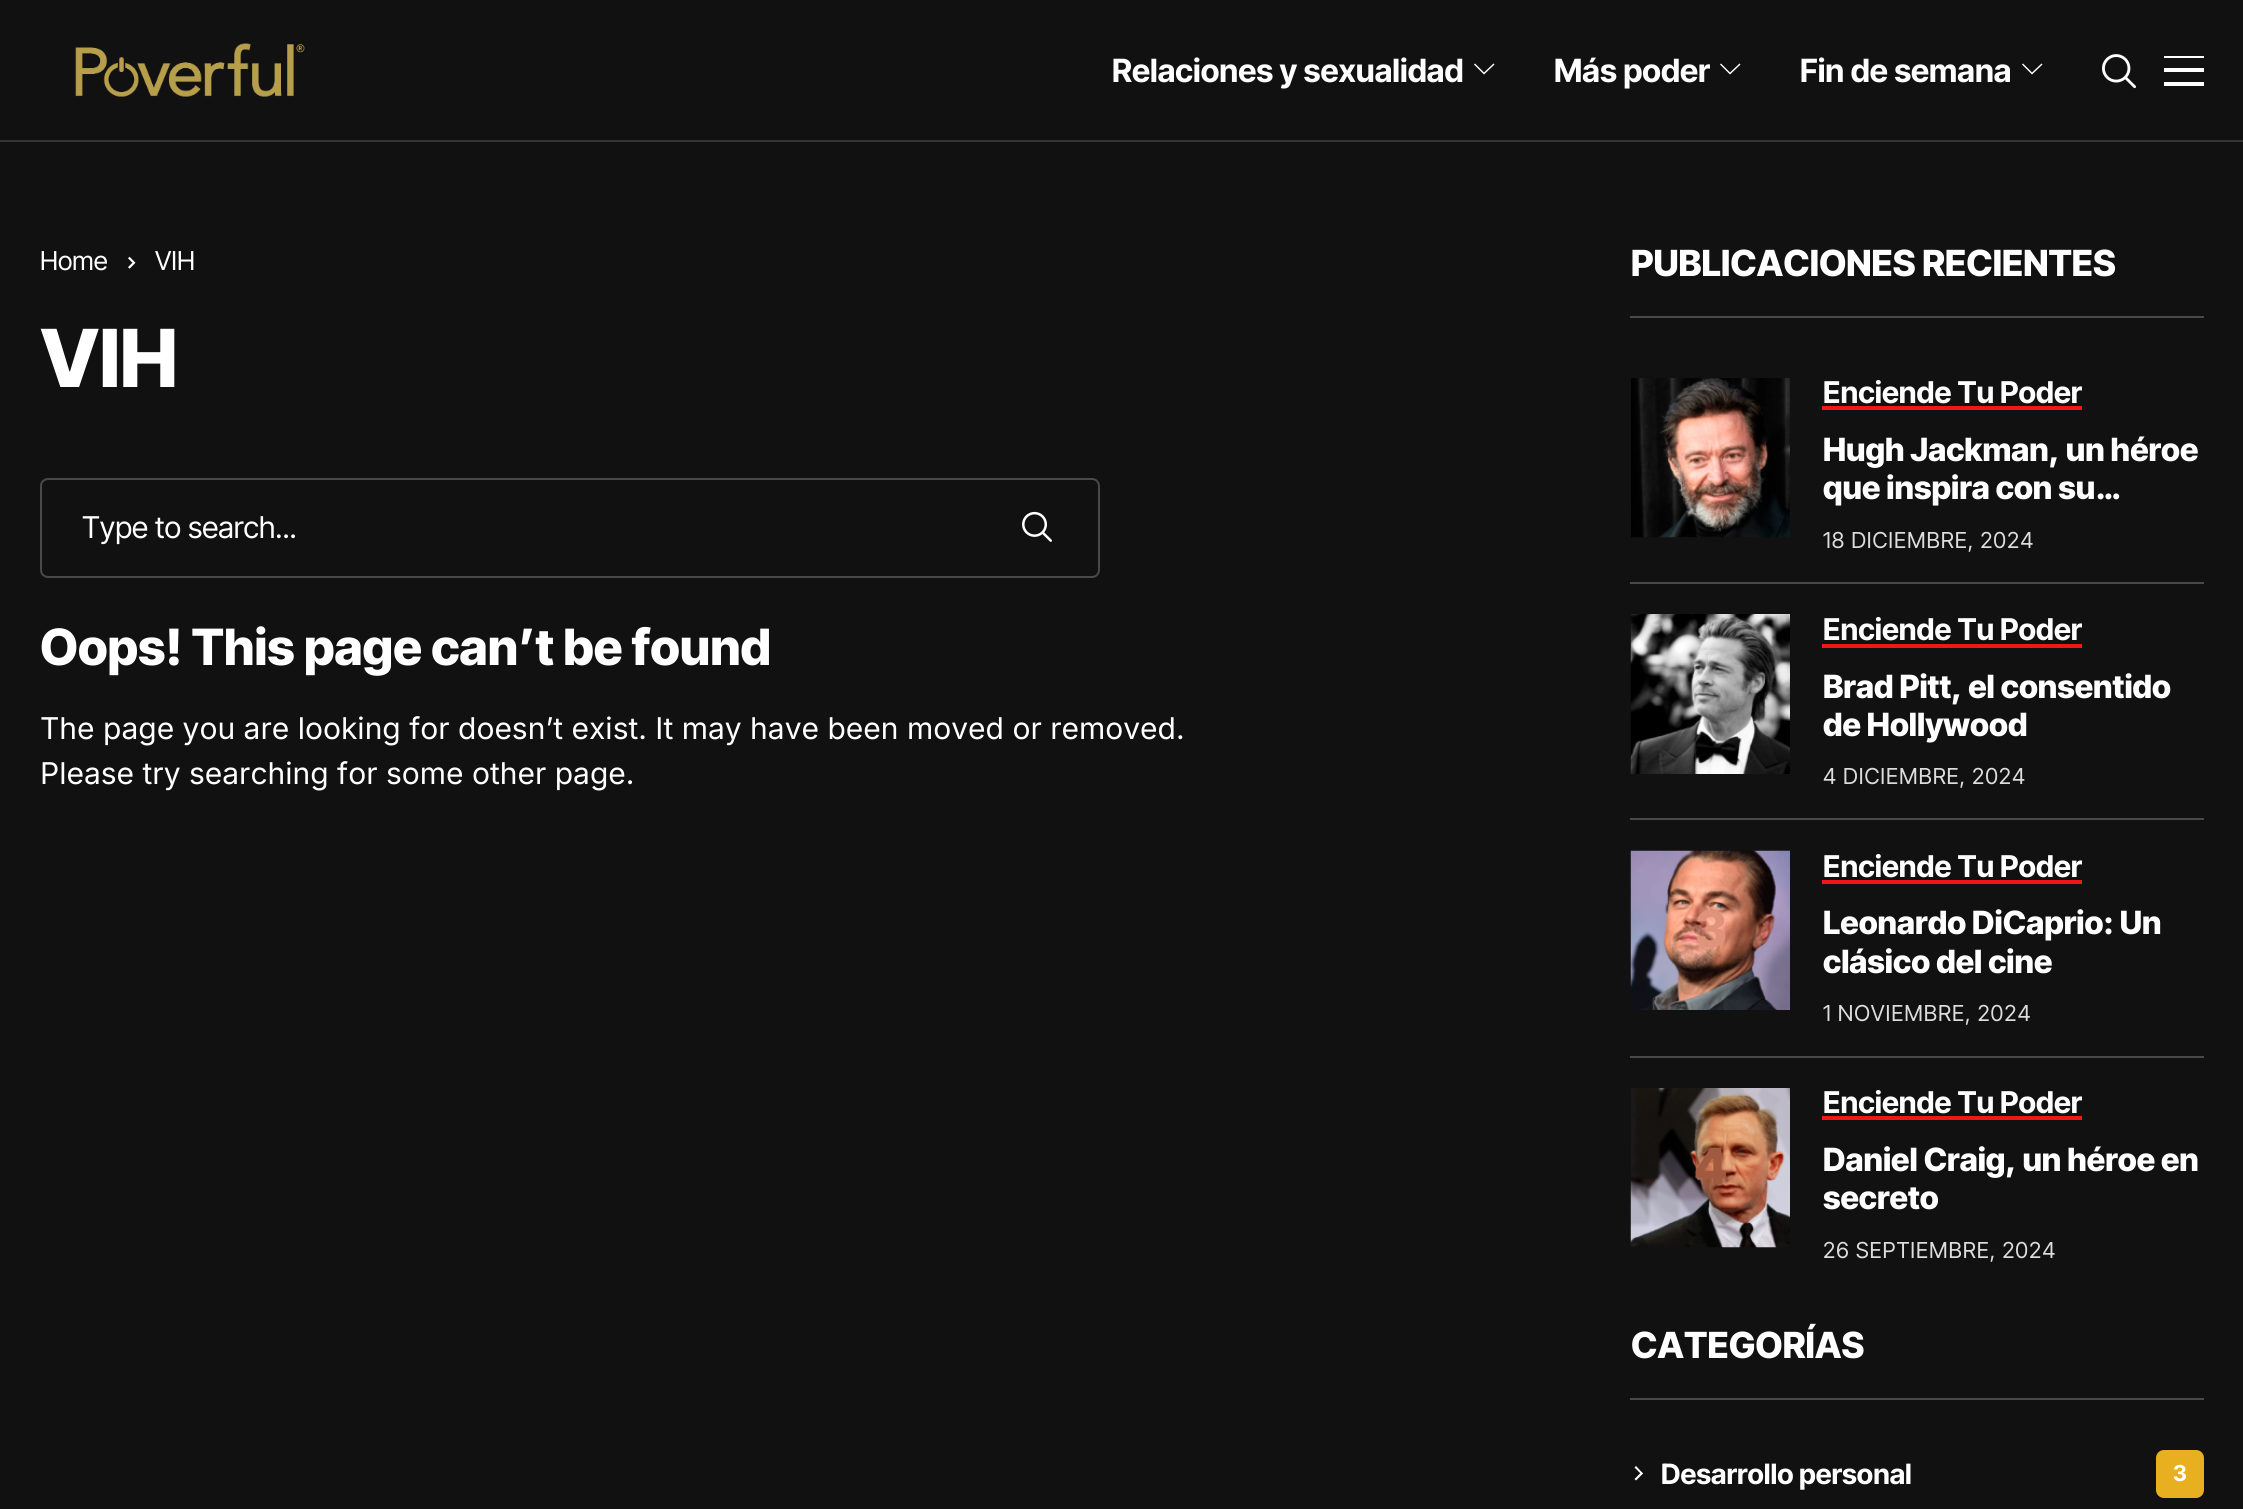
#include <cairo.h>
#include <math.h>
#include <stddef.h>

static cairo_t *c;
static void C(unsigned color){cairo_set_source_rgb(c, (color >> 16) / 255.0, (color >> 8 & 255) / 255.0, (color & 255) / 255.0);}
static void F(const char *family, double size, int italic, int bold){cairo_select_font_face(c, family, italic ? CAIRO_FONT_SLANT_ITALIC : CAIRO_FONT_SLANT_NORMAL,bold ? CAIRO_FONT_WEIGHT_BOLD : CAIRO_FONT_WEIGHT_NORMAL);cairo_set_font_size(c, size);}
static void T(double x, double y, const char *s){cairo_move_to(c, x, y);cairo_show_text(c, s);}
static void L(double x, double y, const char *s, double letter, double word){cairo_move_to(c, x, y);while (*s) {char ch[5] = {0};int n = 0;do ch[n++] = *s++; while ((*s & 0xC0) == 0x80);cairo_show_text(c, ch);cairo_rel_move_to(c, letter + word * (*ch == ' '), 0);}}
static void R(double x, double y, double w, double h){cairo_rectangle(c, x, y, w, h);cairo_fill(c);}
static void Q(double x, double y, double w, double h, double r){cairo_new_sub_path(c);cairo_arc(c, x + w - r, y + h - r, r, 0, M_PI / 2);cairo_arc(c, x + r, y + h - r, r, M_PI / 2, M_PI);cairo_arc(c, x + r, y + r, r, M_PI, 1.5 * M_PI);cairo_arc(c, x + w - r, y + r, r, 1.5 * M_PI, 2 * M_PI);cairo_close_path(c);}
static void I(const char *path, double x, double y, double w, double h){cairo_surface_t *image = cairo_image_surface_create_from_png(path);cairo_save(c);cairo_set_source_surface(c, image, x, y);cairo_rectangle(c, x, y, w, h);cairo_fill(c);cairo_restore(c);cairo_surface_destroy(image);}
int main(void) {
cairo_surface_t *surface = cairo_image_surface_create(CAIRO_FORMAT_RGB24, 2243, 1509);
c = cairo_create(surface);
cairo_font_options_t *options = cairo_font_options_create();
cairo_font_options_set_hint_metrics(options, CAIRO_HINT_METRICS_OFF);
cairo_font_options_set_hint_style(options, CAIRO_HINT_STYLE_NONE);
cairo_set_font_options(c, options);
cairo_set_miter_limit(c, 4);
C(0x111111);
cairo_paint(c);
C(0x353535);
R(0,140,2243,2);
I("1.png",75,43,230,54);
F("Inter Tight",32,0,1);
C(0xffffff);
T(1112,82,"Relaciones y sexualidad");
cairo_new_path(c);
cairo_move_to(c,1493.5,63.5);
cairo_line_to(c,1484,72.5);
cairo_line_to(c,1475,63.5);
cairo_line_to(c,1474,64.5);
cairo_line_to(c,1484,74.5);
cairo_line_to(c,1494.5,64.5);
cairo_close_path(c);
cairo_fill(c);
T(1554,82,"Más poder");
cairo_new_path(c);
cairo_move_to(c,1739.5,63.5);
cairo_line_to(c,1730,72.5);
cairo_line_to(c,1721,63.5);
cairo_line_to(c,1720,64.5);
cairo_line_to(c,1730,74.5);
cairo_line_to(c,1740.5,64.5);
cairo_close_path(c);
cairo_fill(c);
T(1800,82,"Fin de semana");
cairo_new_path(c);
cairo_move_to(c,2041.5,63.5);
cairo_line_to(c,2032,72.5);
cairo_line_to(c,2023,63.5);
cairo_line_to(c,2022,64.5);
cairo_line_to(c,2032,74.5);
cairo_line_to(c,2042.5,64.5);
cairo_close_path(c);
cairo_fill(c);
I("2.png",2102,54,34,35);
R(2164,56,40,2);
R(2164,68,40,4);
R(2164,82,40,4);
F("Inter Tight",26,0,0);
T(40,270,"Home");
I("3.png",128,256,8,13);
T(155,270,"VIH");
F("Inter Tight ExtraBold",80,0,0);
T(40,387,"VIH");
Q(41,479,1058,98,7);
C(0x49494b);
cairo_stroke(c);
F("Inter Tight",30,0,0);
C(0xffffff);
T(82,538,"Type to search...");
I("4.png",1022,511,30,31);
F("Inter Tight ExtraBold",50,0,0);
T(40,665,"Oops! This page can’t be found");
F("Inter",30,0,0);
T(40,739,"The page you are looking for doesn’t exist. It may have been moved or removed.");
T(40,784,"Please try searching for some other page.");
C(0x49494b);
R(1630,316,574,2);
F("Inter Tight ExtraBold",36,0,0);
C(0xffffff);
T(1631,276,"PUBLICACIONES RECIENTES");
I("5.png",1631,378,159,160);
F("Inter Tight",30,0,1);
T(1823,403,"Enciende Tu Poder");
C(0xf21717);
R(1822,406,260,4);
F("Inter Tight ExtraBold",32,0,0);
C(0xffffff);
T(1823,461,"Hugh Jackman, un héroe");
T(1823,499,"que inspira con su…");
F("Inter Tight",22,0,0);
C(0xdddddd);
L(1823,548,"18 DICIEMBRE, 2024",.9,0);
C(0x49494b);
R(1630,582,574,2);
I("6.png",1630,614,160,160);
F("Inter Tight",30,0,1);
C(0xffffff);
T(1823,640,"Enciende Tu Poder");
C(0xf21717);
R(1822,644,260,4);
F("Inter Tight ExtraBold",32,0,0);
C(0xffffff);
T(1823,698,"Brad Pitt, el consentido");
T(1823,736,"de Hollywood");
F("Inter Tight",22,0,0);
C(0xdddddd);
L(1823,784,"4 DICIEMBRE, 2024",.9,0);
C(0x49494b);
R(1630,818,574,2);
I("7.png",1630,850,160,160);
F("Inter Tight ExtraBold",50,0,0);
C(0xdf937b);
T(1695,947,"3");
F("Inter Tight",30,0,1);
C(0xffffff);
T(1823,877,"Enciende Tu Poder");
C(0xf21717);
R(1822,880,260,4);
F("Inter Tight ExtraBold",32,0,0);
C(0xffffff);
T(1823,934,"Leonardo DiCaprio: Un");
T(1823,973,"clásico del cine");
F("Inter Tight",22,0,0);
C(0xdddddd);
L(1823,1021,"1 NOVIEMBRE, 2024",.9,0);
C(0x49494b);
R(1630,1056,574,2);
I("8.png",1630,1088,160,160);
F("Inter Tight ExtraBold",50,0,0);
C(0x9f5a3f);
T(1694,1184,"4");
F("Inter Tight",30,0,1);
C(0xffffff);
T(1823,1113,"Enciende Tu Poder");
C(0xf21717);
R(1822,1116,260,4);
F("Inter Tight ExtraBold",32,0,0);
C(0xffffff);
T(1823,1171,"Daniel Craig, un héroe en");
T(1823,1209,"secreto");
F("Inter Tight",22,0,0);
C(0xdddddd);
L(1823,1258,"26 SEPTIEMBRE, 2024",.9,0);
C(0x49494b);
R(1630,1398,574,2);
F("Inter Tight ExtraBold",36,0,0);
C(0xffffff);
T(1631,1358,"CATEGORÍAS");
cairo_new_path(c);
cairo_move_to(c,1634.5,1467.5);
cairo_line_to(c,1636,1466);
cairo_line_to(c,1643,1473.5);
cairo_line_to(c,1641.5,1474.5);
cairo_close_path(c);
cairo_fill(c);
cairo_new_path(c);
cairo_move_to(c,1634.5,1479);
cairo_line_to(c,1641.5,1472);
cairo_line_to(c,1643,1473.5);
cairo_line_to(c,1636,1480.5);
cairo_close_path(c);
cairo_fill(c);
F("Inter Tight",28,0,1);
T(1661,1484,"Desarrollo personal");
C(0xe8af20);
Q(2156,1450,48,48,8);
cairo_fill(c);
F("Inter Tight",22,0,1);
C(0xffffff);
T(2173,1481,"3");
cairo_surface_write_to_png(surface, "o.png");
cairo_font_options_destroy(options);
cairo_destroy(c);
cairo_surface_destroy(surface);
return 0;
}
